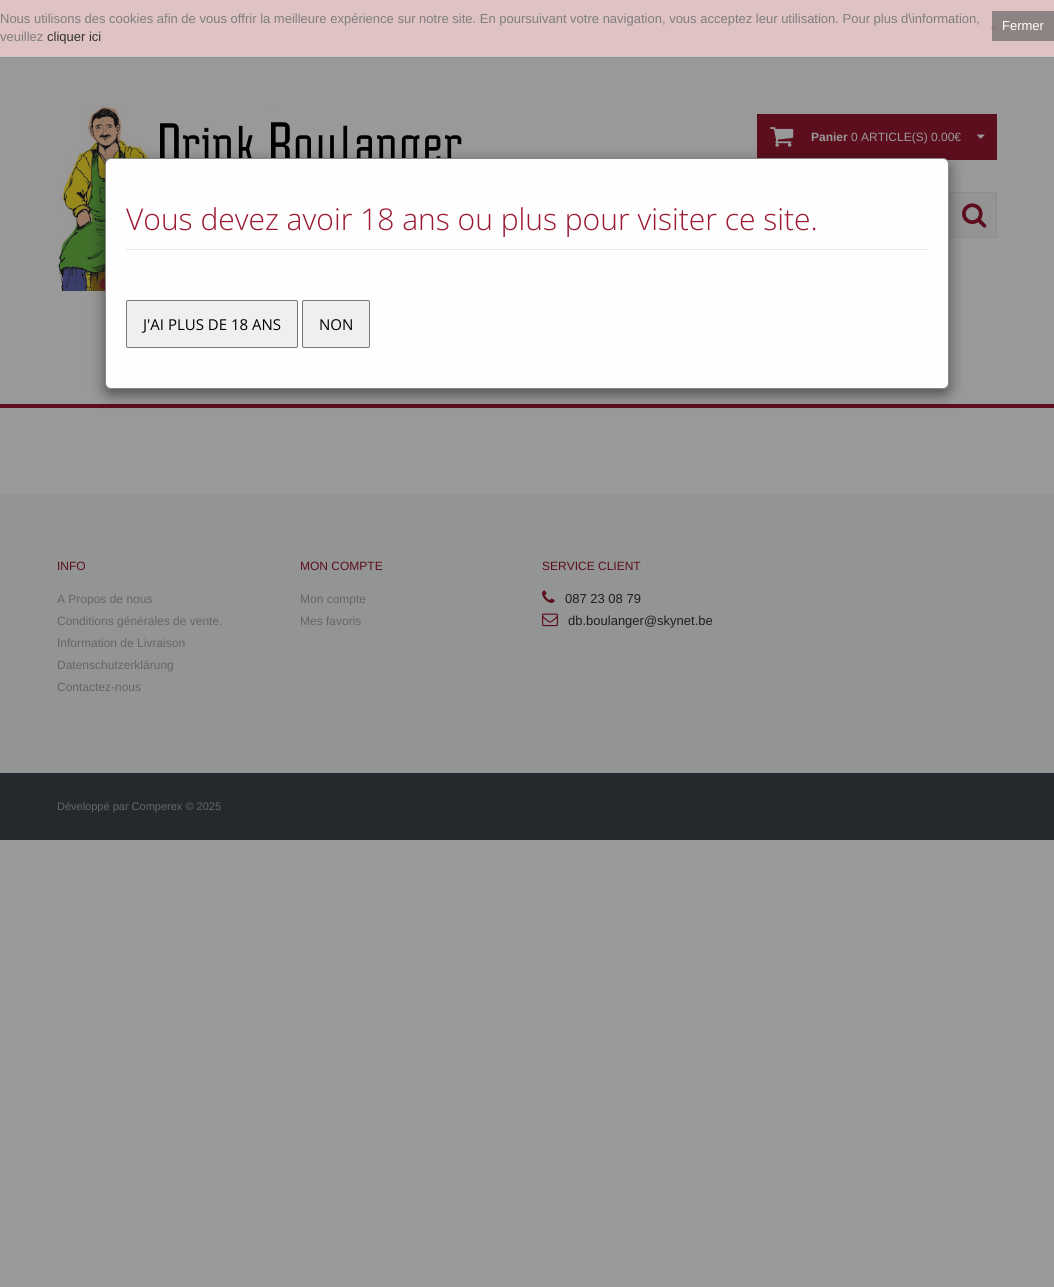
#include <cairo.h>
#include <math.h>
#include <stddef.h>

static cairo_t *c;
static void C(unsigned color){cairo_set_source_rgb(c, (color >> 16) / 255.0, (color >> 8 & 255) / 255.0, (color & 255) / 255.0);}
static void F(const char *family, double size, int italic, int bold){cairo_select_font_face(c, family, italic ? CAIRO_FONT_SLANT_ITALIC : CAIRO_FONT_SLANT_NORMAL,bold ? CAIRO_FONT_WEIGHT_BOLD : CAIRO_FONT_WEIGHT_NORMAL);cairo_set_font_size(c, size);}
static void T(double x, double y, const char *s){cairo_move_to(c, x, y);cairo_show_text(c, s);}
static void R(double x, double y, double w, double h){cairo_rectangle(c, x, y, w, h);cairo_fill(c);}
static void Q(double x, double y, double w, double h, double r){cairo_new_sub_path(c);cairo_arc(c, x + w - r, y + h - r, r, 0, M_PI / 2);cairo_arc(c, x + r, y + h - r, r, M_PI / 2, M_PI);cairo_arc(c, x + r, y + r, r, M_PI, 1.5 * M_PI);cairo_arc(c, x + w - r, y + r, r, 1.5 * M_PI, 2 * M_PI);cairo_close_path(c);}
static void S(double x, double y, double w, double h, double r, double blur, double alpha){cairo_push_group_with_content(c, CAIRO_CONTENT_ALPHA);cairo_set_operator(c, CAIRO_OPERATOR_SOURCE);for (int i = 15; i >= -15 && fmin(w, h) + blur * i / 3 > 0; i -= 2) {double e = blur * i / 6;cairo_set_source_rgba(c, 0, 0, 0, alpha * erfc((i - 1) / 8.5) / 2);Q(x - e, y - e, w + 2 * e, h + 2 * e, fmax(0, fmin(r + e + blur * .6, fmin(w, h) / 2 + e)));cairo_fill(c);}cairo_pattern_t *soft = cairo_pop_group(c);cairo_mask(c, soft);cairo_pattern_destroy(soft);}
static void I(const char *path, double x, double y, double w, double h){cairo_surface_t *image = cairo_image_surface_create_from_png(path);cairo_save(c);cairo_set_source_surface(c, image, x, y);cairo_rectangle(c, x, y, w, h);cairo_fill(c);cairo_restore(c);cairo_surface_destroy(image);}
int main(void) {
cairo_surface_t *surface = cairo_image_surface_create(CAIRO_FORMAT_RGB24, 1054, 1287);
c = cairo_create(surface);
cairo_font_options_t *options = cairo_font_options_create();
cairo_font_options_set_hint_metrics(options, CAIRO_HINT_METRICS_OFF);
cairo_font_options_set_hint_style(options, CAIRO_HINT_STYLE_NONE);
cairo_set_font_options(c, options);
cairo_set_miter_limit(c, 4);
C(0x999999);
cairo_paint(c);
C(0xcbc3c3);
R(0,56,1054,1);
C(0xdfc2c2);
R(0,0,1054,56);
F("Liberation Sans",13,0,0);
C(0x7e7e7e);
T(0,23,"Nous utilisons des cookies afin de vous offrir la meilleure expérience sur notre site. En poursuivant votre navigation, vous acceptez leur utilisation. Pour plus d\\information,");
I("1.png",990,26,8,5);
cairo_set_source_rgba(c,0.38,0.38,0.38,0.65);
R(992,11,62,30);
C(0xffffff);
T(1002,30,"Fermer");
C(0x7e7e7e);
T(0,41,"veuillez");
C(0x323232);
T(47,41,"cliquer ici");
C(0x939494);
R(0,57,1054,1);
I("2.png",58,106,409,185);
C(0x5d0e1d);
R(757,114,240,46);
I("3.png",770,127,24,20);
F("Liberation Sans",12,0,1);
C(0x999999);
T(811,141,"Panier");
F("Liberation Sans",12,0,0);
T(851,141,"0 ARTICLE(S) 0.00€");
I("4.png",977,134,8,5);
C(0x949494);
R(949,193,47,44);
cairo_rectangle(c,717.5,192.5,279,45);
C(0x8d8d8d);
cairo_set_line_width(c,1);
cairo_stroke(c);
I("5.png",962,203,25,25);
C(0x5d0e1d);
R(0,404,1054,4);
C(0x000000);
S(105,163,844,231,6,7.5,.5);
C(0xfefefe);
Q(105.5,158.5,843,230,5.5);
cairo_fill_preserve(c);
C(0x888888);
cairo_stroke(c);
C(0xe6e6e6);
R(126,249,802,1);
F("Open Sans Light",30,0,0);
C(0x9b1830);
T(126,230,"Vous devez avoir 18 ans ou plus pour visiter ce site.");
C(0xefefef);
Q(126.5,300.5,171,47,1.5);
cairo_fill_preserve(c);
C(0x767676);
cairo_stroke(c);
F("Open Sans",15,0,0);
C(0x000000);
T(143,330,"J'AI PLUS DE 18 ANS");
C(0xefefef);
Q(302.5,300.5,67,47,1.5);
cairo_fill_preserve(c);
C(0x767676);
cairo_stroke(c);
C(0x000000);
T(319,330,"NON");
C(0x939494);
R(0,494,1054,279);
F("Liberation Sans",12,0,0);
C(0x5d0e1d);
T(57,570,"INFO");
C(0x646567);
T(57,603,"A Propos de nous");
T(57,625,"Conditions générales de vente.");
T(57,647,"Information de Livraison");
T(57,669,"Datenschutzerklärung");
T(57,691,"Contactez-nous");
C(0x5d0e1d);
T(300,570,"MON COMPTE");
C(0x646567);
T(300,603,"Mon compte");
T(300,625,"Mes favoris");
C(0x5d0e1d);
T(542,570,"SERVICE CLIENT");
I("6.png",542,590,13,13);
F("Liberation Sans",13,0,0);
C(0x1e1e1e);
T(565,603,"087 23 08 79");
I("7.png",542,613,16,14);
T(568,625,"db.boulanger@skynet.be");
C(0x25292e);
R(0,773,1054,67);
F("Liberation Sans",11,0,0);
C(0x646567);
T(57,810,"Développé par Comperex © 2025");
cairo_surface_write_to_png(surface, "o.png");
cairo_font_options_destroy(options);
cairo_destroy(c);
cairo_surface_destroy(surface);
return 0;
}
